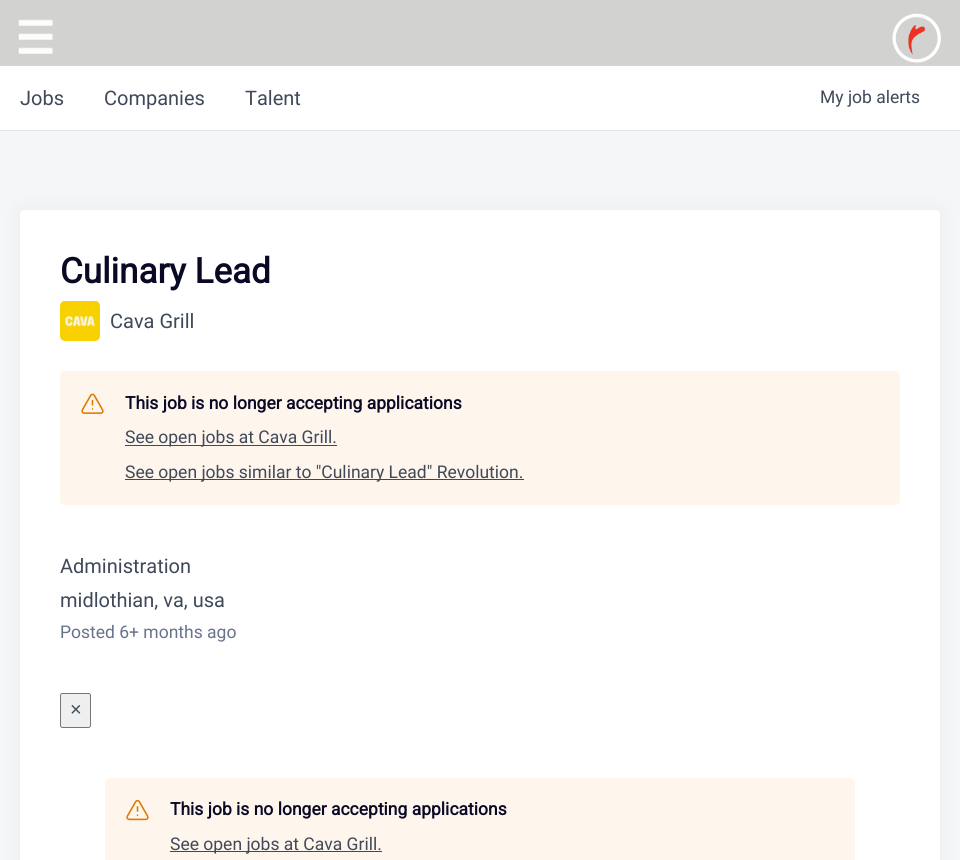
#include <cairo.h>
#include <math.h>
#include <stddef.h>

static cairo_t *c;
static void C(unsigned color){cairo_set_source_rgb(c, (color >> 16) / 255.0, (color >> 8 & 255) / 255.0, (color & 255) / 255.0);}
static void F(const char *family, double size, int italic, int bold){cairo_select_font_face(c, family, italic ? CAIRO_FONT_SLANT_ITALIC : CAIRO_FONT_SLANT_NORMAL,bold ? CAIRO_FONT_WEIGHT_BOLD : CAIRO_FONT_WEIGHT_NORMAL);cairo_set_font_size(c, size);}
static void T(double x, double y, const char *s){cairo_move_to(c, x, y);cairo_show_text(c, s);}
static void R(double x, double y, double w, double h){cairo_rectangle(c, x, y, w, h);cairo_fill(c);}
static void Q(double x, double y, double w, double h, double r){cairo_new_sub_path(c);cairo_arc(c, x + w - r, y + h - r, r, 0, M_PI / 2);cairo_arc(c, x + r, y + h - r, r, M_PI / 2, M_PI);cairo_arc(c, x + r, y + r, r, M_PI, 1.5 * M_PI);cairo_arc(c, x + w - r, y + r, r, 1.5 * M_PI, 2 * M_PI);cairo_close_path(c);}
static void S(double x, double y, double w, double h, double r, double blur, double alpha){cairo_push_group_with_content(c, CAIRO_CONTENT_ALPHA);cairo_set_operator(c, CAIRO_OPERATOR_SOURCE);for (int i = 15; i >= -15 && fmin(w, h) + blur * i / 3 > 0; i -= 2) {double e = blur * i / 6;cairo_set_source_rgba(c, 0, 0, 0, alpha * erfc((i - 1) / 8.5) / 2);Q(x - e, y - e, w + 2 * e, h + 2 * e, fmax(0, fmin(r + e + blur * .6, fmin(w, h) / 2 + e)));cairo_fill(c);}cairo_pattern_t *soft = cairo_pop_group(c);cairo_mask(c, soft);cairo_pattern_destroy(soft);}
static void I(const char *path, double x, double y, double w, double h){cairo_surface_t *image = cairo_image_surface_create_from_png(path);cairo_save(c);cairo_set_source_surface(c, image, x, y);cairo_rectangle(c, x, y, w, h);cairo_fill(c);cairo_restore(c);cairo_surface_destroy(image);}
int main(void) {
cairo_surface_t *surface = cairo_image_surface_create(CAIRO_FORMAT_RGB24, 960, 860);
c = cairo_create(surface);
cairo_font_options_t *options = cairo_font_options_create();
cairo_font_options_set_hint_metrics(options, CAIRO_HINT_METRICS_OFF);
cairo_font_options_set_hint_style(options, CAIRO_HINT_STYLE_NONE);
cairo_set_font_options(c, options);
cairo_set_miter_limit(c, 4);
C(0xf4f6f7);
cairo_paint(c);
C(0xd2d2d1);
R(0,0,960,66);
I("1.png",18,19,35,35);
I("2.png",892,13,49,50);
C(0xe5e5e5);
R(0,130,960,1);
C(0xffffff);
R(0,66,960,64);
F("Roboto",20,0,0);
C(0x3f495a);
T(20,105,"Jobs");
T(104,105,"Companies");
T(245,105,"Talent");
F("Roboto",17.5,0,0);
T(820,103,"My job alerts");
C(0x1b2432);
S(20,211,920,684,5,10,.06);
C(0xffffff);
Q(20,210,920,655,5);
cairo_fill(c);
F("Roboto",35,0,1);
C(0x090925);
T(60,283,"Culinary Lead");
I("3.png",60,301,40,40);
F("Roboto",20,0,0);
C(0x3f495a);
T(110,328,"Cava Grill");
C(0xfef5ec);
Q(60,371,840,134,5);
cairo_fill(c);
I("4.png",81,393,23,21);
F("Roboto",17.5,0,1);
C(0x090925);
T(125,409,"This job is no longer accepting applications");
C(0x3f495a);
R(125,445,212,1);
F("Roboto",17.5,0,0);
T(125,443,"See open jobs at Cava Grill.");
R(125,479,399,1);
T(125,478,"See open jobs similar to \"Culinary Lead\" Revolution.");
F("Roboto",20,0,0);
T(60,573,"Administration");
T(60,607,"midlothian, va, usa");
F("Roboto",17.5,0,0);
C(0x67738b);
T(60,638,"Posted 6+ months ago");
C(0xefefef);
Q(60.5,693.5,30,34,2);
cairo_fill_preserve(c);
C(0x767676);
cairo_set_line_width(c,1);
cairo_stroke(c);
F("Liberation Sans",20,0,0);
C(0x3f495a);
T(70,716,"×");
C(0xfef5ec);
Q(105,778,750,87,5);
cairo_fill(c);
I("5.png",126,799,23,22);
F("Roboto",17.5,0,1);
C(0x090925);
T(170,815,"This job is no longer accepting applications");
C(0x3f495a);
R(170,851,212,1);
F("Roboto",17.5,0,0);
T(170,850,"See open jobs at Cava Grill.");
cairo_surface_write_to_png(surface, "o.png");
cairo_font_options_destroy(options);
cairo_destroy(c);
cairo_surface_destroy(surface);
return 0;
}
